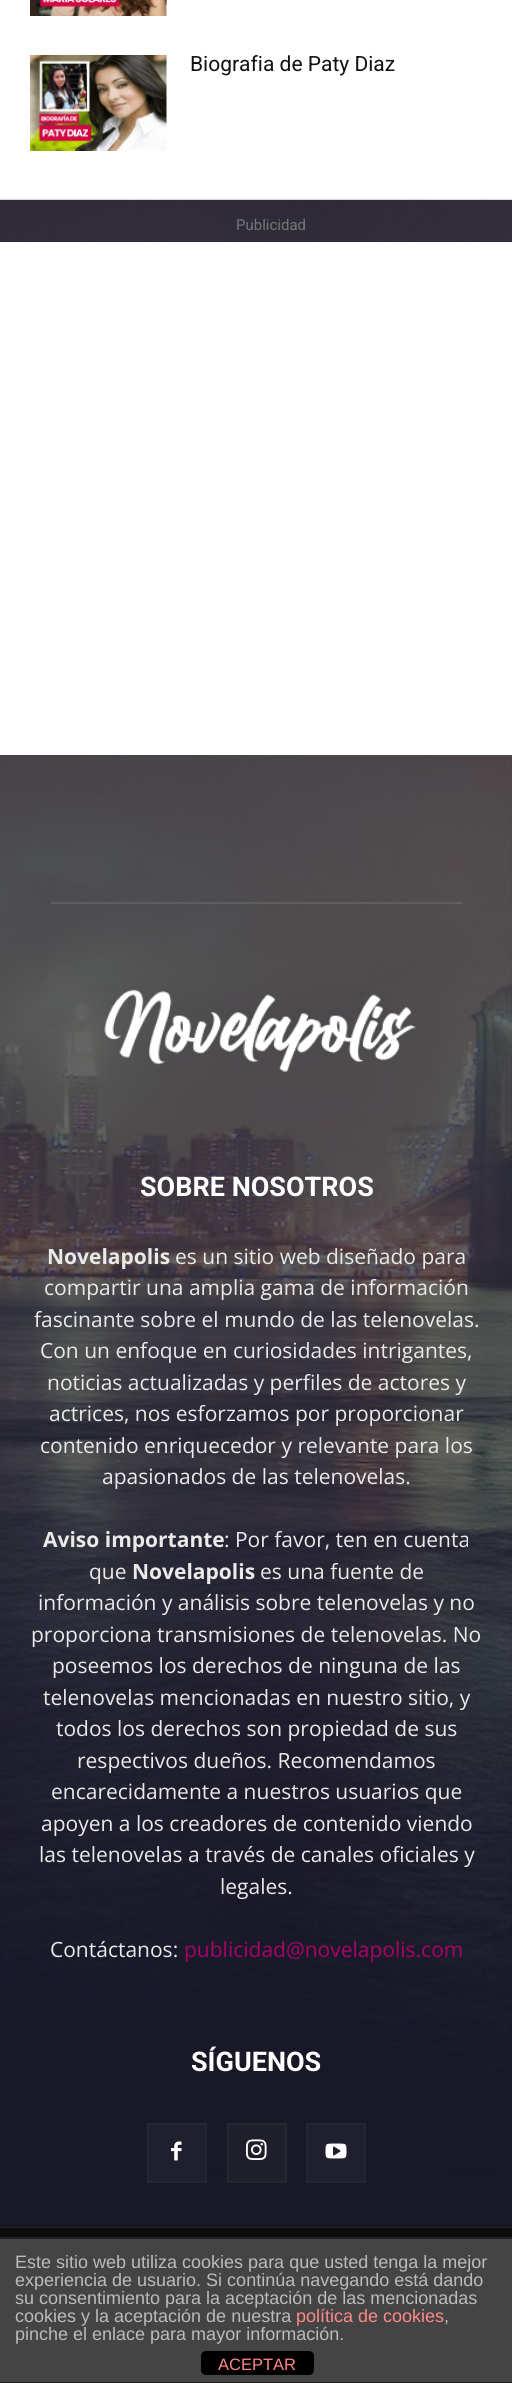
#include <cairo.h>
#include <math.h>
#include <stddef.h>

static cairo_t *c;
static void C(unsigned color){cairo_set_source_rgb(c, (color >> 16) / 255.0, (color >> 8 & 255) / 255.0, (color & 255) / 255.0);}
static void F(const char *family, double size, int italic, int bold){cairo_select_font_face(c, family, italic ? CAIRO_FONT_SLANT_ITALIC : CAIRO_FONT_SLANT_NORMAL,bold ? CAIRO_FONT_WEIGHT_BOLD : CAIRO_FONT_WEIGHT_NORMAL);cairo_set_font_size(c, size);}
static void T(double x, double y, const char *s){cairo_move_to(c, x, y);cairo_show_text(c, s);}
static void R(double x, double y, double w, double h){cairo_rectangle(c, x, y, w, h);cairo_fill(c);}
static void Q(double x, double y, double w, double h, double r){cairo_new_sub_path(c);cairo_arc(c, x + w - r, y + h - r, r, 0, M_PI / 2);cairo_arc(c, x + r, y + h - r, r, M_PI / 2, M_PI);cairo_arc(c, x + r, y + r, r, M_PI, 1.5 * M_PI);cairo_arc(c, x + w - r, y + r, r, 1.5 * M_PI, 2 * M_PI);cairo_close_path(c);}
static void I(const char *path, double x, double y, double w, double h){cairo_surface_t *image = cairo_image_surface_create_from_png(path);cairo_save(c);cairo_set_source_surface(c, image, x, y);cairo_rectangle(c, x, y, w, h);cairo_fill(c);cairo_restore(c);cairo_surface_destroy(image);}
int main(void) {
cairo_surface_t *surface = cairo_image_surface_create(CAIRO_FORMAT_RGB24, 512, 2383);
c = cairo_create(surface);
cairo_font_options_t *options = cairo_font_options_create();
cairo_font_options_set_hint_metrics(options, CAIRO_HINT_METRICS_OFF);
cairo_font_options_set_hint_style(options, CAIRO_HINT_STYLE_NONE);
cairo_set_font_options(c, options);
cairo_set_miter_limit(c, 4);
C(0xffffff);
cairo_paint(c);
I("1.png",30,0,137,16);
I("2.png",30,55,137,96);
F("Roboto",21,0,0);
C(0x111111);
T(190,71,"Biografia de Paty Diaz");
C(0x222222);
R(0,200,512,2028);
I("3.png",0,198,512,2029);
F("Roboto",15,0,0);
C(0x767676);
T(236,230,"Publicidad");
C(0xffffff);
R(0,242,512,513);
cairo_set_source_rgba(c,1,1,1,0.1);
R(51,902,411,2);
I("4.png",104,989,312,83);
F("Roboto",27,0,1);
C(0xffffff);
T(140,1196,"SOBRE NOSOTROS");
F("Open Sans",21,0,1);
C(0xeaeaea);
T(47,1264,"Novelapolis");
F("Open Sans",21,0,0);
T(175,1264,"es un sitio web diseñado para");
T(44,1295,"compartir una amplia gama de información");
T(34,1327,"fascinante sobre el mundo de las telenovelas.");
T(40,1358,"Con un enfoque en curiosidades intrigantes,");
T(47,1390,"noticias actualizadas y perfiles de actores y");
T(49,1421,"actrices, nos esforzamos por proporcionar");
T(40,1453,"contenido enriquecedor y relevante para los");
T(102,1484,"apasionados de las telenovelas.");
F("Open Sans",21,0,1);
T(43,1547,"Aviso importante");
F("Open Sans",21,0,0);
T(224,1547,": Por favor, ten en cuenta");
T(89,1579,"que");
F("Open Sans",21,0,1);
T(132,1579,"Novelapolis");
F("Open Sans",21,0,0);
T(260,1579,"es una fuente de");
T(38,1610,"información y análisis sobre telenovelas y no");
T(31,1642,"proporciona transmisiones de telenovelas. No");
T(52,1673,"poseemos los derechos de ninguna de las");
T(43,1705,"telenovelas mencionadas en nuestro sitio, y");
T(56,1736,"todos los derechos son propiedad de sus");
T(77,1768,"respectivos dueños. Recomendamos");
T(51,1799,"encarecidamente a nuestros usuarios que");
T(41,1831,"apoyen a los creadores de contenido viendo");
T(39,1862,"las telenovelas a través de canales oficiales y");
T(220,1894,"legales.");
T(50,1957,"Contáctanos:");
C(0xaa0368);
T(184,1957,"publicidad@novelapolis.com");
F("Roboto",27,0,1);
C(0xffffff);
T(191,2071,"SÍGUENOS");
C(0x1f1f2d);
R(149,2125,56,56);
I("5.png",171,2141,11,20);
cairo_rectangle(c,148,2124,58,58);
C(0x262633);
cairo_stroke(c);
C(0x1f1f2c);
R(229,2125,56,56);
I("6.png",246,2139,21,21);
cairo_rectangle(c,228,2124,58,58);
C(0x262632);
cairo_stroke(c);
C(0x1f1f2d);
R(308,2125,56,56);
I("7.png",325,2143,22,16);
cairo_rectangle(c,307,2124,58,58);
C(0x262633);
cairo_stroke(c);
C(0x0d0d0d);
R(0,2228,512,9);
C(0x444444);
R(0,2239,512,143);
C(0x222222);
R(0,2237,512,2);
R(0,2382,512,1);
F("Liberation Sans",18,0,0);
C(0xbbbbbb);
T(15,2268,"Este sitio web utiliza cookies para que usted tenga la mejor");
T(15,2286,"experiencia de usuario. Si continúa navegando está dando");
T(15,2304,"su consentimiento para la aceptación de las mencionadas");
T(15,2322,"cookies y la aceptación de nuestra");
C(0xff8888);
T(296,2322,"política de cookies");
C(0xbbbbbb);
T(444,2322,",");
T(15,2340,"pinche el enlace para mayor información.");
C(0x000000);
Q(201,2351,113,24,5);
cairo_fill(c);
F("Liberation Sans",16.5,0,0);
C(0xff8888);
T(218,2370,"ACEPTAR");
cairo_surface_write_to_png(surface, "o.png");
cairo_font_options_destroy(options);
cairo_destroy(c);
cairo_surface_destroy(surface);
return 0;
}
